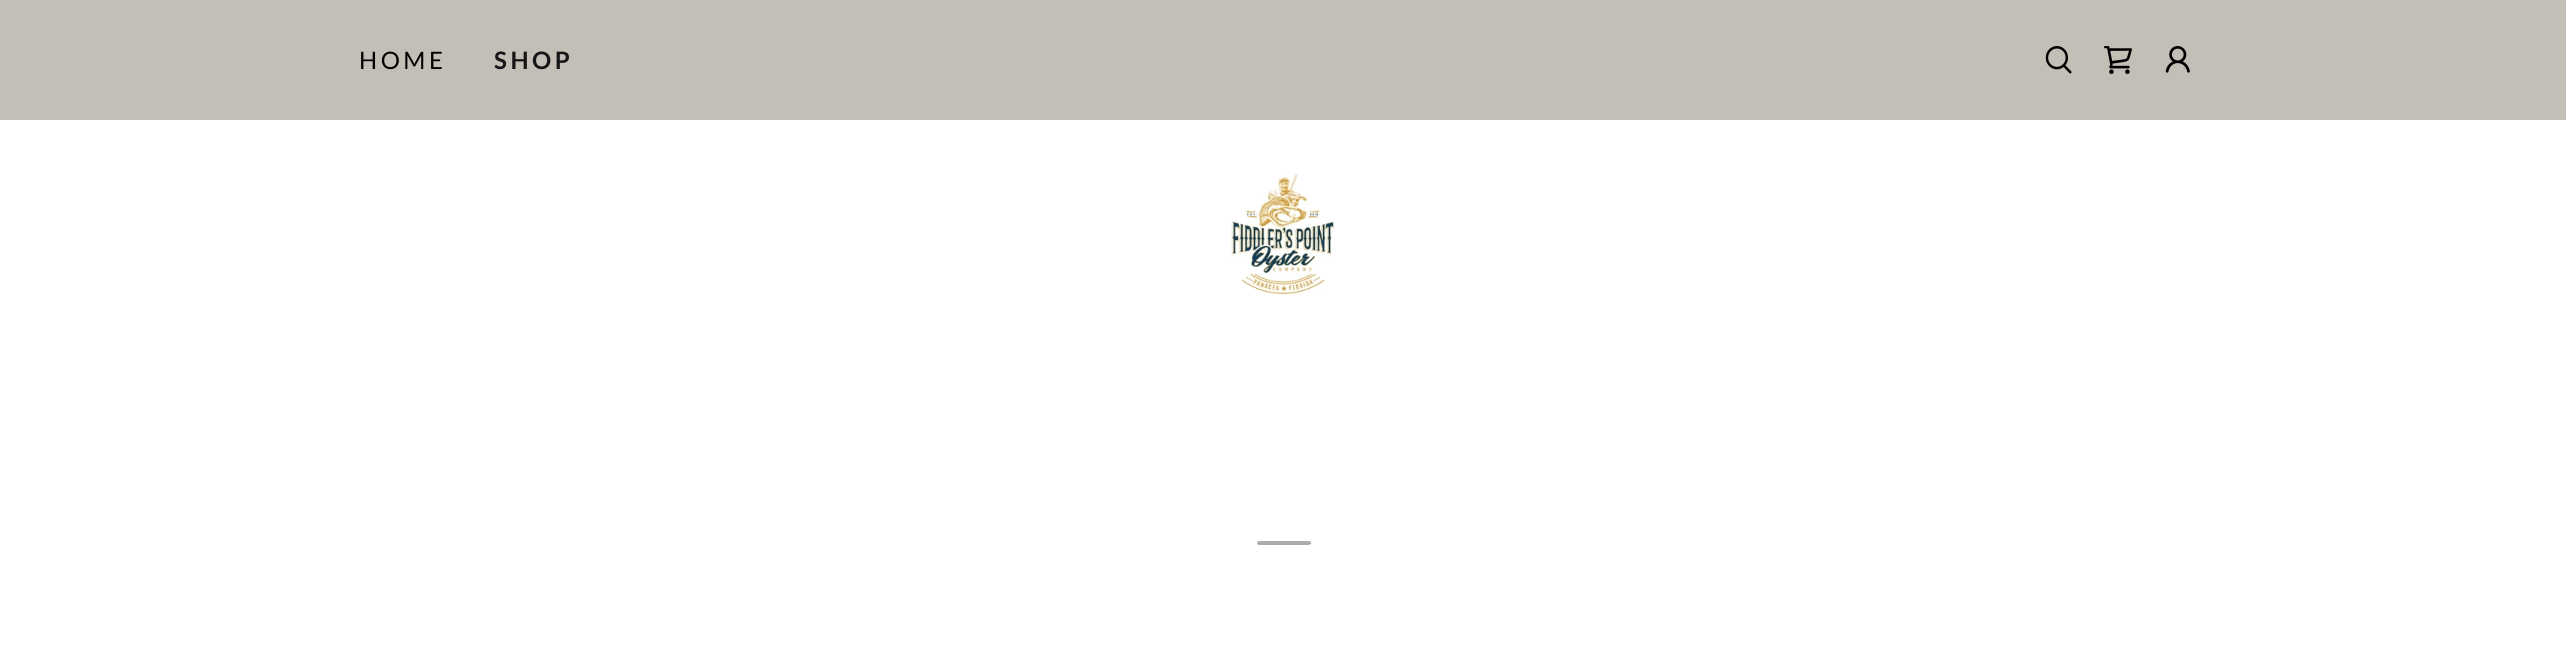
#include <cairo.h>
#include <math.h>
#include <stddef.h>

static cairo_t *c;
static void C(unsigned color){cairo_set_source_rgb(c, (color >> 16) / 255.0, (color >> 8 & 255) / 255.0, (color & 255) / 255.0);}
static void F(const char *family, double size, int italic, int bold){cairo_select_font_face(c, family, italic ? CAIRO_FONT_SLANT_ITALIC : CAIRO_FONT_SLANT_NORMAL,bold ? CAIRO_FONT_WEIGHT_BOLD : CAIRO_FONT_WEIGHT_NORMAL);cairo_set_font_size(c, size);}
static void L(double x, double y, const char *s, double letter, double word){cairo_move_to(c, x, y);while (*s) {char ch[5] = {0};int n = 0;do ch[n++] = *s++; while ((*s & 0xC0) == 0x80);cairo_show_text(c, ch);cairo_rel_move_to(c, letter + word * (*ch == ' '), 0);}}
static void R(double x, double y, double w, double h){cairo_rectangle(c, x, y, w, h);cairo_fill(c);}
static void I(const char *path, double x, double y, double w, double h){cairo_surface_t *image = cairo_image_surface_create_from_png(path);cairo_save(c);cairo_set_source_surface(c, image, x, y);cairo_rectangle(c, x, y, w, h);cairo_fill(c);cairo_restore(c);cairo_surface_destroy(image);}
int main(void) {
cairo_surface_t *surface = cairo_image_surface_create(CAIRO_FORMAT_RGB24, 2566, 664);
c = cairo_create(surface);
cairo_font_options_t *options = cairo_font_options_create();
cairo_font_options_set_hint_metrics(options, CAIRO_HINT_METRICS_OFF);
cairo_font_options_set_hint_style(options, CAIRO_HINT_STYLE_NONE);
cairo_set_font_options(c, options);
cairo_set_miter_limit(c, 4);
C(0xffffff);
cairo_paint(c);
C(0xc3bfb7);
R(0,0,2566,120);
F("Lato",24,0,0);
C(0x000000);
L(359,69,"HOME",3.5,0);
F("Lato",24,0,1);
C(0x161616);
L(494,69,"SHOP",3.5,0);
I("1.png",2045,46,27,28);
I("2.png",2104,46,28,28);
I("3.png",2165,46,25,27);
I("4.png",1230,174,105,121);
C(0xacacac);
cairo_set_fill_rule(c,CAIRO_FILL_RULE_EVEN_ODD);
cairo_new_path(c);
cairo_move_to(c,1308,545);
cairo_line_to(c,1259,545);
cairo_curve_to(c,1257,545,1256,542,1259,541);
cairo_line_to(c,1309,541);
cairo_line_to(c,1311,542);
cairo_curve_to(c,1312,544,1310,545,1308,545);
cairo_fill(c);
cairo_surface_write_to_png(surface, "o.png");
cairo_font_options_destroy(options);
cairo_destroy(c);
cairo_surface_destroy(surface);
return 0;
}
